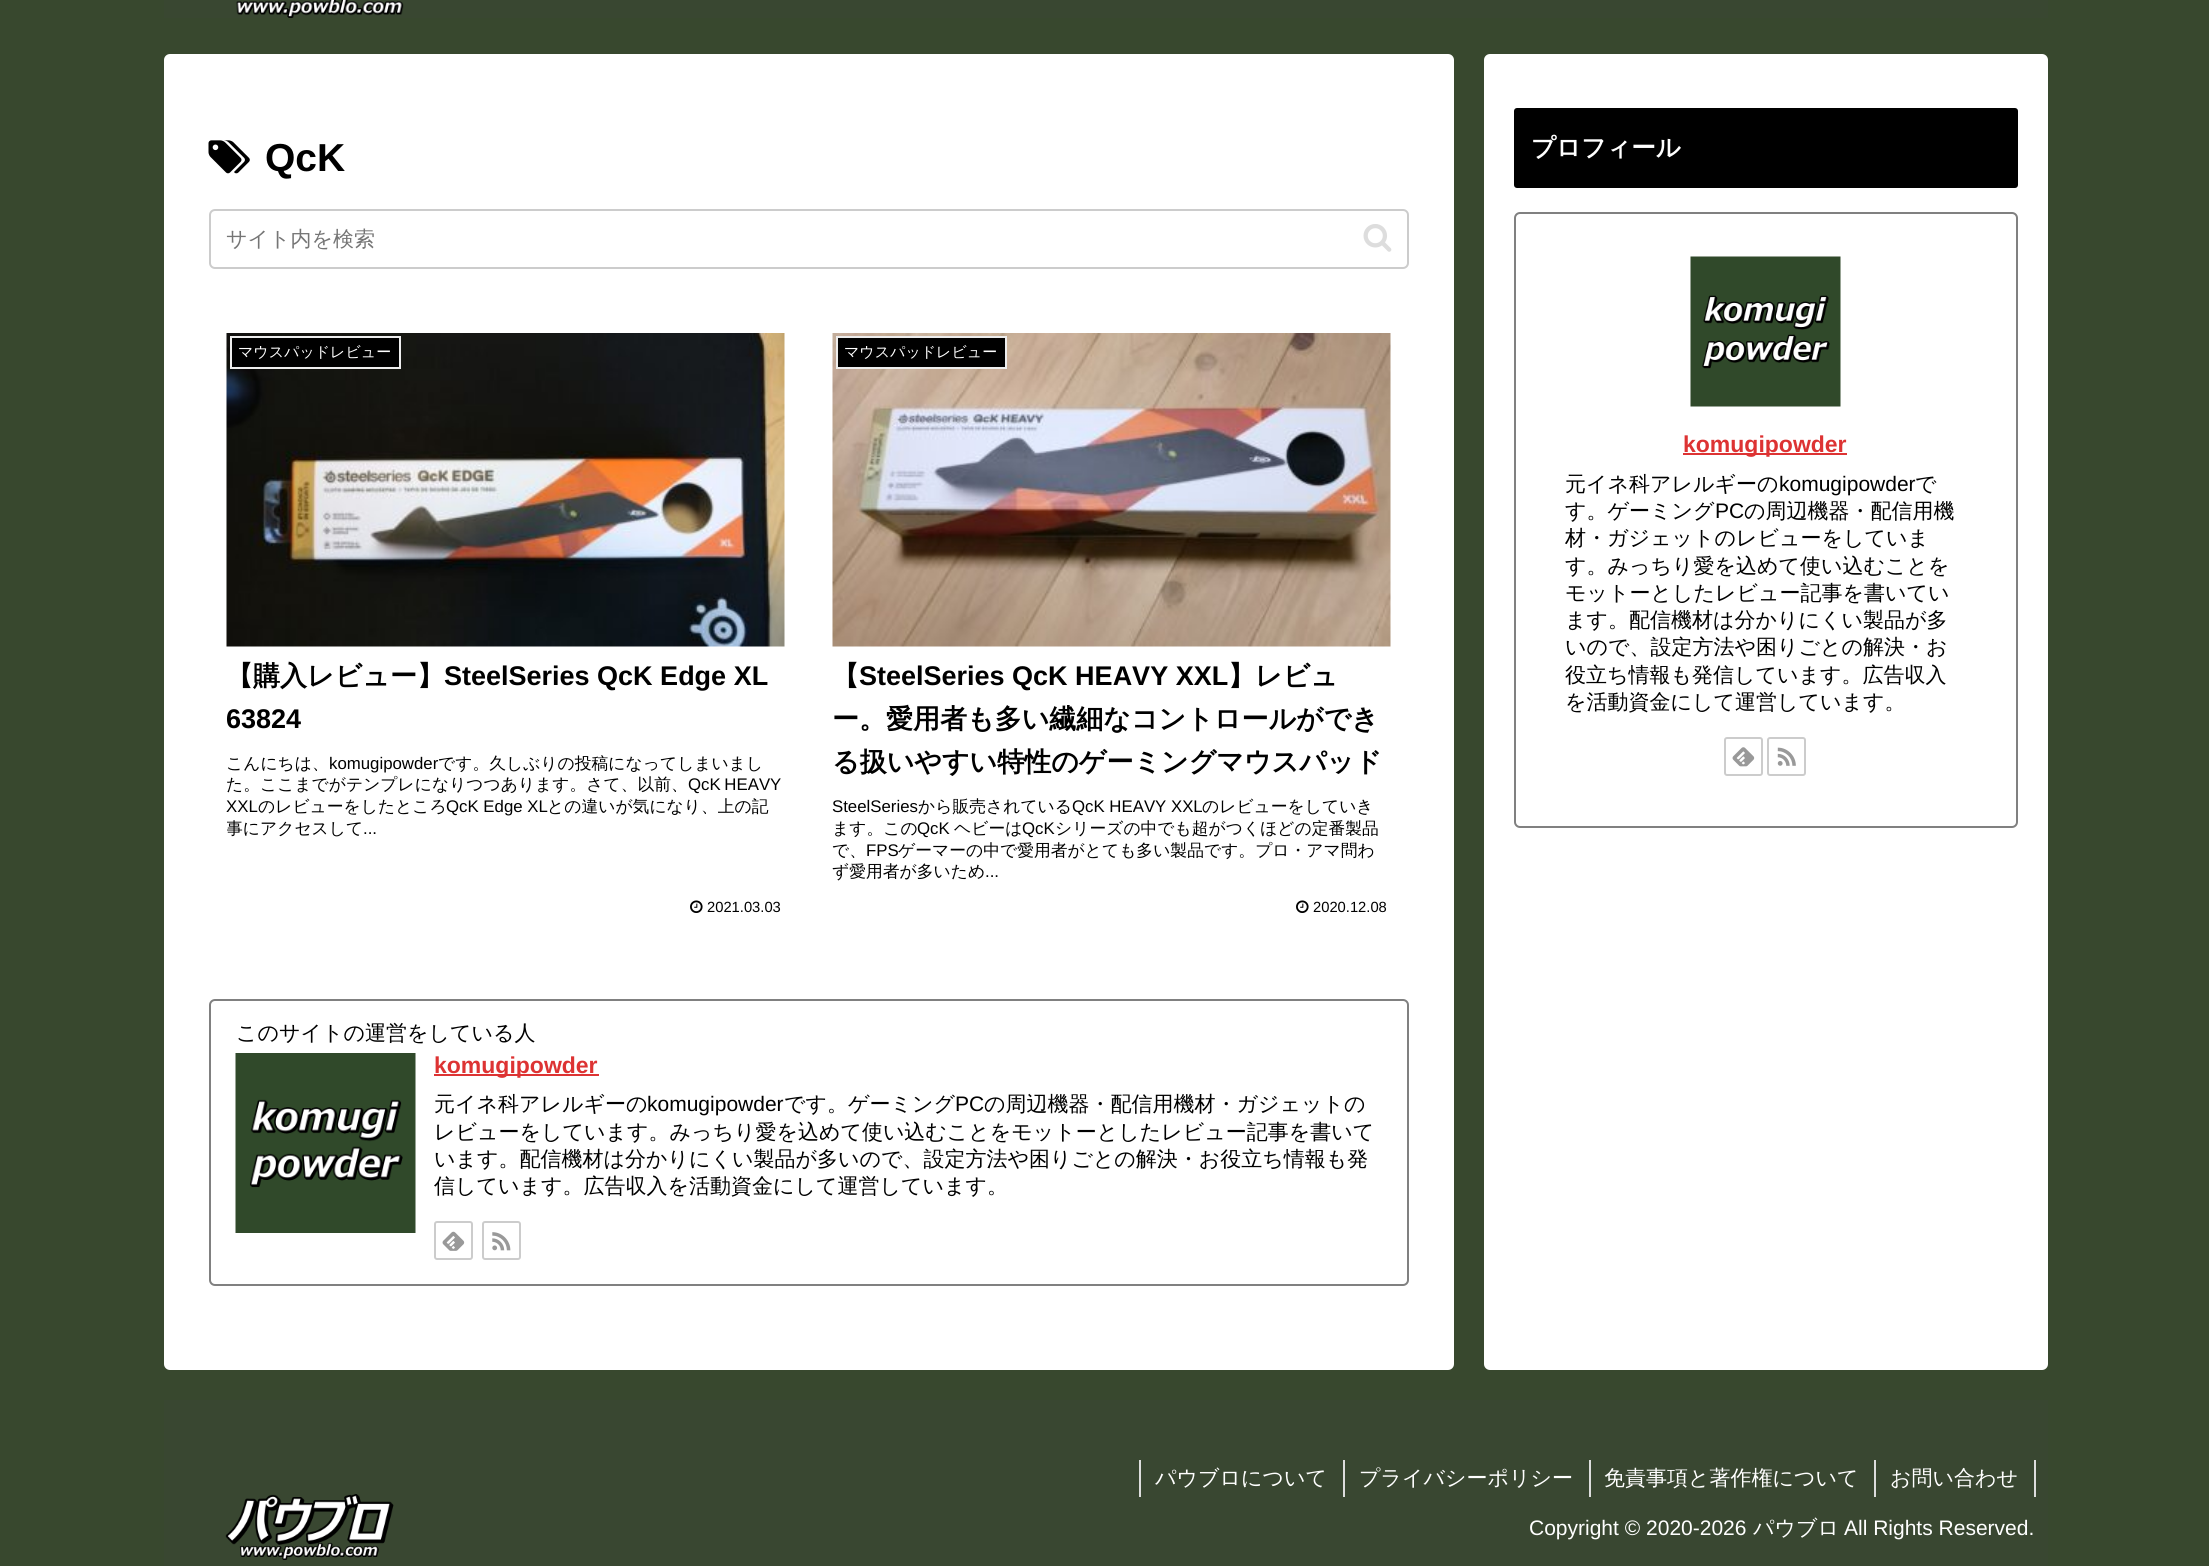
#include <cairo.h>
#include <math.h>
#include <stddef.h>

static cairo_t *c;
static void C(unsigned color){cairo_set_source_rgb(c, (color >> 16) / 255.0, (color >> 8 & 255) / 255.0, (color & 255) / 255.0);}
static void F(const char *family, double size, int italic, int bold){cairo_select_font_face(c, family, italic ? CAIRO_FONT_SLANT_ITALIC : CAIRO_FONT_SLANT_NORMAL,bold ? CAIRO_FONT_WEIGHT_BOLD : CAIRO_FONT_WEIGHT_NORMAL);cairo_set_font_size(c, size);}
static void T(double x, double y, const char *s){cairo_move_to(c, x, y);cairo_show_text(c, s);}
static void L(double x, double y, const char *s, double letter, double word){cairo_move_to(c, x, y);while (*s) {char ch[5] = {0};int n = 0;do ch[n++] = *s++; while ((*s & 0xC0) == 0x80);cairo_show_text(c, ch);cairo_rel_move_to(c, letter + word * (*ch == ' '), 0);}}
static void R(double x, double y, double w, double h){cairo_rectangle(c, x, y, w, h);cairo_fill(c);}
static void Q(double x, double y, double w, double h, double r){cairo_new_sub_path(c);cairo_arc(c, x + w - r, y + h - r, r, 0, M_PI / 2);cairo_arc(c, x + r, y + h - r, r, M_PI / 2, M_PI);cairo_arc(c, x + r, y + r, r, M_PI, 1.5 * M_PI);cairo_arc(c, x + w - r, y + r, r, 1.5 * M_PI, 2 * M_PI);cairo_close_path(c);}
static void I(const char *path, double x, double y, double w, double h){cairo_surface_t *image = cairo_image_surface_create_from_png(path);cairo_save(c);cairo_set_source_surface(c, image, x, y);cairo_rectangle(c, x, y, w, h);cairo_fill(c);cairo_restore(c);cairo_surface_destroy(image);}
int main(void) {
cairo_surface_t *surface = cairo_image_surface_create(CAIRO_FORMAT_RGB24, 2209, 1566);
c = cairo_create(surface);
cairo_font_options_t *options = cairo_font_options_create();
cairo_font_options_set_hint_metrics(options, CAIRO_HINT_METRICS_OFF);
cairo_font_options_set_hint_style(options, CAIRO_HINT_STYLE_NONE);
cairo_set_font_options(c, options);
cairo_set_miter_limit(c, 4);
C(0x38482e);
cairo_paint(c);
C(0x394731);
R(164,0,1884,18);
I("1.png",236,0,168,18);
C(0xffffff);
Q(164,54,1290,1316,6);
cairo_fill(c);
I("2.png",208,140,42,34);
F("Liberation Sans",39,0,1);
C(0x000000);
T(265,171,"QcK");
Q(210,210,1198,58,5);
C(0xcccccc);
cairo_stroke(c);
F("WenQuanYi Zen Hei Medium",21,0,0);
C(0x757575);
T(226,246,"サイト内を検索");
I("3.png",1363,224,29,28);
I("4.png",226,333,559,314);
C(0x000000);
cairo_rectangle(c,231,337,169,31);
cairo_fill_preserve(c);
C(0xeeeeee);
cairo_stroke(c);
F("WenQuanYi Zen Hei Medium",15,0,0);
C(0xffffff);
T(238,357,"マウスパッドレビュー");
F("WenQuanYi Zen Hei",27,0,1);
C(0x000000);
T(226,685,"【購入レビュー】");
F("Liberation Sans",27,0,1);
T(444,685,"SteelSeries QcK Edge XL");
cairo_save(c);
cairo_rectangle(c,227,656,558,85);
cairo_clip(c);
T(226,728,"63824");
cairo_restore(c);
F("WenQuanYi Zen Hei Medium",16.8,0,0);
T(226,769,"こんにちは、");
F("Liberation Sans",16.8,0,0);
T(329,769,"komugipowder");
F("WenQuanYi Zen Hei Medium",16.8,0,0);
T(438,769,"です。久しぶりの投稿になってしまいまし");
T(226,790,"た。ここまでがテンプレになりつつあります。さて、以前、");
F("Liberation Sans",16.8,0,0);
L(688,790,"QcK HEAVY",0,-1);
T(226,812,"XXL");
F("WenQuanYi Zen Hei Medium",16.8,0,0);
T(258,812,"のレビューをしたところ");
F("Liberation Sans",16.8,0,0);
T(446,812,"QcK Edge XL");
F("WenQuanYi Zen Hei Medium",16.8,0,0);
T(547,812,"との違いが気になり、上の記");
cairo_save(c);
cairo_rectangle(c,227,752,558,88);
cairo_clip(c);
T(226,834,"事にアクセスして");
cairo_restore(c);
F("Liberation Sans",16.8,0,0);
T(363,834,"...");
I("5.png",690,900,13,13);
F("Liberation Sans",14.75,0,0);
T(707,912,"2021.03.03");
I("6.png",832,333,559,314);
cairo_rectangle(c,837,337,169,31);
cairo_fill_preserve(c);
C(0xeeeeee);
cairo_stroke(c);
F("WenQuanYi Zen Hei Medium",15,0,0);
C(0xffffff);
T(844,357,"マウスパッドレビュー");
F("WenQuanYi Zen Hei",27,0,1);
C(0x000000);
T(832,685,"【");
F("Liberation Sans",27,0,1);
T(859,685,"SteelSeries QcK HEAVY XXL");
F("WenQuanYi Zen Hei",27,0,1);
T(1228,685,"】レビュ");
T(832,728,"ー。愛用者も多い繊細なコントロールができ");
T(832,771,"る扱いやすい特性のゲーミングマウスパッド");
F("Liberation Sans",16.8,0,0);
T(832,812,"SteelSeries");
F("WenQuanYi Zen Hei Medium",16.8,0,0);
T(918,812,"から販売されている");
F("Liberation Sans",16.8,0,0);
T(1072,812,"QcK HEAVY XXL");
F("WenQuanYi Zen Hei Medium",16.8,0,0);
T(1202,812,"のレビューをしていき");
T(832,834,"ます。この");
F("Liberation Sans",16.8,0,0);
T(917,834,"QcK");
F("WenQuanYi Zen Hei Medium",16.8,0,0);
T(954,834,"ヘビーは");
F("Liberation Sans",16.8,0,0);
T(1022,834,"QcK");
F("WenQuanYi Zen Hei Medium",16.8,0,0);
T(1055,834,"シリーズの中でも超がつくほどの定番製品");
T(832,856,"で、");
F("Liberation Sans",16.8,0,0);
T(866,856,"FPS");
F("WenQuanYi Zen Hei Medium",16.8,0,0);
T(898,856,"ゲーマーの中で愛用者がとても多い製品です。プロ・アマ問わ");
T(832,877,"ず愛用者が多いため");
F("Liberation Sans",16.8,0,0);
T(985,877,"...");
I("5.png",1296,900,13,13);
F("Liberation Sans",14.75,0,0);
T(1313,912,"2020.12.08");
Q(210,1000,1198,285,5);
C(0x808080);
cairo_stroke(c);
F("WenQuanYi Zen Hei Medium",21,0,0);
C(0x000000);
T(236,1040,"このサイトの運営をしている人");
I("7.png",235,1053,181,180);
C(0xdd3333);
R(434,1074,165,2);
F("Liberation Sans",23,0,1);
T(434,1073,"komugipowder");
F("WenQuanYi Zen Hei Medium",21,0,0);
C(0x000000);
T(434,1111,"元イネ科アレルギーの");
F("Liberation Sans",21,0,0);
T(647,1111,"komugipowder");
F("WenQuanYi Zen Hei Medium",21,0,0);
T(784,1111,"です。ゲーミング");
F("Liberation Sans",21,0,0);
T(955,1111,"PC");
F("WenQuanYi Zen Hei Medium",21,0,0);
T(984,1111,"の周辺機器・配信用機材・ガジェットの");
T(434,1139,"レビューをしています。みっちり愛を込めて使い込むことをモットーとしたレビュー記事を書いて");
T(434,1166,"います。配信機材は分かりにくい製品が多いので、設定方法や困りごとの解決・お役立ち情報も発");
T(434,1193,"信しています。広告収入を活動資金にして運営しています。");
Q(435,1222,37,37,2);
C(0xcccccc);
cairo_stroke(c);
I("8.png",442,1231,23,20);
Q(483,1222,37,37,2);
cairo_stroke(c);
I("9.png",492,1232,19,19);
C(0xffffff);
Q(1484,54,564,1316,6);
cairo_fill(c);
C(0x000000);
Q(1514,108,504,80,3);
cairo_fill(c);
F("WenQuanYi Zen Hei",24.5,0,1);
C(0xffffff);
T(1531,156,"プロフィール");
Q(1515,213,502,614,5);
C(0x808080);
cairo_stroke(c);
I("10.png",1690,256,151,151);
C(0xdd3333);
R(1683,453,164,2);
F("Liberation Sans",23,0,1);
T(1683,452,"komugipowder");
F("WenQuanYi Zen Hei Medium",21,0,0);
C(0x000000);
T(1565,491,"元イネ科アレルギーの");
F("Liberation Sans",21,0,0);
T(1779,491,"komugipowder");
F("WenQuanYi Zen Hei Medium",21,0,0);
T(1915,491,"で");
T(1565,518,"す。ゲーミング");
F("Liberation Sans",21,0,0);
T(1715,518,"PC");
F("WenQuanYi Zen Hei Medium",21,0,0);
T(1744,518,"の周辺機器・配信用機");
T(1565,545,"材・ガジェットのレビューをしていま");
T(1565,573,"す。みっちり愛を込めて使い込むことを");
T(1565,600,"モットーとしたレビュー記事を書いてい");
T(1565,627,"ます。配信機材は分かりにくい製品が多");
T(1565,654,"いので、設定方法や困りごとの解決・お");
T(1565,682,"役立ち情報も発信しています。広告収入");
T(1565,709,"を活動資金にして運営しています。");
Q(1725,738,37,37,2);
C(0xcccccc);
cairo_stroke(c);
I("11.png",1732,747,23,20);
Q(1768,738,37,37,2);
cairo_stroke(c);
I("12.png",1777,747,19,19);
C(0x394731);
R(164,1400,1884,166);
I("13.png",225,1494,169,66);
C(0xdddddd);
R(1139,1460,2,37);
C(0xffffff);
T(1155,1485,"パウブロについて");
C(0xdddddd);
R(1343,1460,2,37);
C(0xffffff);
T(1359,1485,"プライバシーポリシー");
C(0xdddddd);
R(1589,1460,2,37);
C(0xffffff);
T(1604,1485,"免責事項と著作権について");
C(0xdddddd);
R(2034,1460,2,37);
R(1874,1460,2,37);
C(0xffffff);
T(1890,1485,"お問い合わせ");
F("Liberation Sans",21,0,0);
T(1529,1535,"Copyright © 2020-2026");
F("WenQuanYi Zen Hei Medium",21,0,0);
T(1753,1535,"パウブロ");
F("Liberation Sans",21,0,0);
T(1844,1535,"All Rights Reserved.");
cairo_surface_write_to_png(surface, "o.png");
cairo_font_options_destroy(options);
cairo_destroy(c);
cairo_surface_destroy(surface);
return 0;
}
